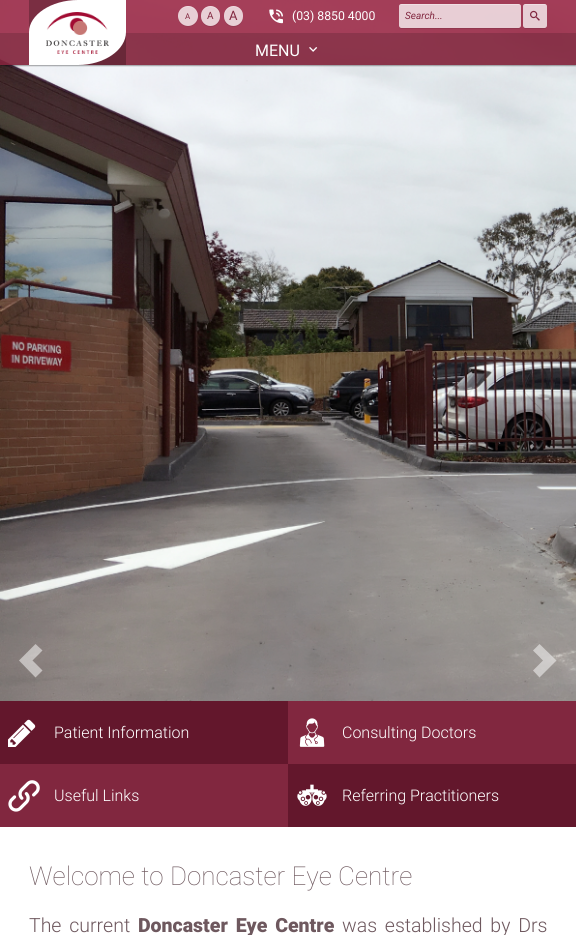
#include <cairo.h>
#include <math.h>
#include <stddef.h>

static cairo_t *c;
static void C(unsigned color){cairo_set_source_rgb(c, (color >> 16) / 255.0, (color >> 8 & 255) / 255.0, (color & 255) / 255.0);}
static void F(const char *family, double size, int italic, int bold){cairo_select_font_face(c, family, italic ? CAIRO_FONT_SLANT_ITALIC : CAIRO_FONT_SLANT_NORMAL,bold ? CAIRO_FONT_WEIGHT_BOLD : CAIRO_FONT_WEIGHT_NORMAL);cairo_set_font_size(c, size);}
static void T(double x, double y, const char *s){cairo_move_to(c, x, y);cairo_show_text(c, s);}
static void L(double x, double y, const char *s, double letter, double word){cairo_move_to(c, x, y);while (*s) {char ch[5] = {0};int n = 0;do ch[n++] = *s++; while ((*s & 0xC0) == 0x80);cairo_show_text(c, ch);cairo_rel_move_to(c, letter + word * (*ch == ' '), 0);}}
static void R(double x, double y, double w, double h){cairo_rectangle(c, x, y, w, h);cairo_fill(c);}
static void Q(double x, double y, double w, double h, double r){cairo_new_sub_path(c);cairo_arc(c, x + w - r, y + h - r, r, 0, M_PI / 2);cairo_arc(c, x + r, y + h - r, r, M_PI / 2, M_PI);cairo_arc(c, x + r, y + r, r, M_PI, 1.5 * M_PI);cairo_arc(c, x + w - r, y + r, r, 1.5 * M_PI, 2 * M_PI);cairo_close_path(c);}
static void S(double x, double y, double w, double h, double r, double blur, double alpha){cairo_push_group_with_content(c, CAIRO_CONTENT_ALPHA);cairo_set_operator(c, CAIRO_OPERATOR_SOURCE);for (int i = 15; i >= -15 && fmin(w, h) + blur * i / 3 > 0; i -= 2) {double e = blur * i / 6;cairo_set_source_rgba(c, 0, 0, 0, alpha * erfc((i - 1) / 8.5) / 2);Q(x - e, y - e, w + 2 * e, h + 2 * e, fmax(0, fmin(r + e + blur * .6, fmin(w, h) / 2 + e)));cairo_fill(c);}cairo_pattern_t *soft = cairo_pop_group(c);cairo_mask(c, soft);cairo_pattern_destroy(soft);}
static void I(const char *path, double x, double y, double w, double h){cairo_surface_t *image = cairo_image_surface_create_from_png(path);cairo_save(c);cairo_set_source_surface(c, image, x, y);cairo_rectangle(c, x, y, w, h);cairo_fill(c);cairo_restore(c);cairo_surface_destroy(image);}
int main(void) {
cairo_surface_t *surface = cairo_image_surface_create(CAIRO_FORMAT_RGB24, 576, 935);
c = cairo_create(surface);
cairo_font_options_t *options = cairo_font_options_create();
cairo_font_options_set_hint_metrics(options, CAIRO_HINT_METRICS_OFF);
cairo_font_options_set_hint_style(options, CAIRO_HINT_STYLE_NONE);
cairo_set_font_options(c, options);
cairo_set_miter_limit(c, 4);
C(0xffffff);
cairo_paint(c);
I("1.png",0,0,576,701);
cairo_set_source_rgba(c,1,1,1,0.5);
cairo_new_path(c);
cairo_move_to(c,42.5,650.5);
cairo_line_to(c,35.5,644);
cairo_line_to(c,19,660.5);
cairo_line_to(c,35.5,677.5);
cairo_line_to(c,42.5,670.5);
cairo_line_to(c,32.5,660.5);
cairo_close_path(c);
cairo_fill(c);
cairo_new_path(c);
cairo_move_to(c,539.5,644);
cairo_line_to(c,533,650.5);
cairo_line_to(c,543,660.5);
cairo_line_to(c,533,670.5);
cairo_line_to(c,539.5,677.5);
cairo_line_to(c,556.5,660.5);
cairo_close_path(c);
cairo_fill(c);
cairo_save(c);
cairo_rectangle(c,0,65,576,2);
cairo_clip(c);
C(0x000000);
S(0,1,576,65,0,.5,.33);
cairo_restore(c);
cairo_set_source_rgba(c,0.608,0.165,0.282,0.9);
R(0,0,576,65);
cairo_set_source_rgba(c,0,0,0,0.15);
R(0,33,576,32);
cairo_set_source_rgba(c,0,0,0,0.25);
R(29,0,97,65);
C(0xffffff);
cairo_new_path(c);
cairo_move_to(c,78,0);
cairo_line_to(c,126,0);
cairo_line_to(c,126,32);
cairo_curve_to(c,126,50,104,65,78,65);
cairo_line_to(c,29,65);
cairo_line_to(c,29,32);
cairo_curve_to(c,29,15,51,0,78,0);
cairo_close_path(c);
cairo_fill(c);
I("2.png",46,12,63,42);
C(0x933850);
cairo_new_path(c);
cairo_move_to(c,178,16.5);
cairo_curve_to(c,177.5,30,198.5,30,198,16.5);
cairo_curve_to(c,197.5,29,178.5,29,178,16.5);
cairo_close_path(c);
cairo_fill(c);
cairo_set_source_rgba(c,1,1,1,0.75);
cairo_arc(c,188,16,10,0,2 * M_PI);
cairo_fill(c);
cairo_set_source_rgba(c,1,1,1,0.33);
cairo_new_path(c);
cairo_move_to(c,188,7);
cairo_curve_to(c,195.5,7,198.5,13,197.5,19);
cairo_curve_to(c,198,16.5,198,14,197,12);
cairo_curve_to(c,192.5,.5,175,7,178.5,19);
cairo_curve_to(c,177.5,13,180.5,7,188,7);
cairo_close_path(c);
cairo_fill(c);
F("Roboto",8,0,0);
C(0x81273f);
T(185,19,"A");
C(0x933851);
cairo_new_path(c);
cairo_move_to(c,220,16.5);
cairo_curve_to(c,219.5,29,201.5,29,201,16.5);
cairo_curve_to(c,200.5,30.5,220.5,30.5,220,16.5);
cairo_close_path(c);
cairo_fill(c);
cairo_set_source_rgba(c,1,1,1,0.75);
Q(201,6,19,20,9.5);
cairo_fill(c);
cairo_set_source_rgba(c,1,1,1,0.33);
cairo_new_path(c);
cairo_move_to(c,210,7);
cairo_curve_to(c,218,7,221,14,219.5,20);
cairo_curve_to(c,220,18.5,220,17,220,15.5);
cairo_curve_to(c,219,2.5,200.5,3.5,201,16.5);
cairo_curve_to(c,201,12,204,7,210,7);
cairo_close_path(c);
cairo_fill(c);
F("Roboto",10,0,0);
C(0x81273f);
T(207,19,"A");
C(0x943851);
cairo_new_path(c);
cairo_move_to(c,243,16.5);
cairo_curve_to(c,242.5,29,224.5,29,224,16.5);
cairo_curve_to(c,223.5,30.5,243.5,30.5,243,16.5);
cairo_close_path(c);
cairo_fill(c);
cairo_set_source_rgba(c,1,1,1,0.75);
Q(224,6,19,20,9.5);
cairo_fill(c);
cairo_set_source_rgba(c,1,1,1,0.33);
cairo_new_path(c);
cairo_move_to(c,234,7);
cairo_curve_to(c,240,7,243,12,243,16.5);
cairo_curve_to(c,243.5,3.5,225,2.5,224,15.5);
cairo_curve_to(c,224,17,224,18.5,224.5,20);
cairo_curve_to(c,223,14,226,7,234,7);
cairo_close_path(c);
cairo_fill(c);
F("Roboto",13,0,0);
C(0x81273f);
T(229,20,"A");
I("3.png",269,9,14,15);
F("Roboto",12.25,0,0);
C(0xffffff);
T(292,20,"(03) 8850 4000");
cairo_set_source_rgba(c,0,0,0,0.1);
cairo_new_path(c);
cairo_move_to(c,399,26);
cairo_curve_to(c,399,27,399,29,402,29);
cairo_line_to(c,518,29);
cairo_curve_to(c,521,29,521,27,521,26);
cairo_curve_to(c,521,27,520,28,519,28);
cairo_line_to(c,401,28);
cairo_curve_to(c,400,28,399,27,399,26);
cairo_close_path(c);
cairo_fill(c);
cairo_set_source_rgba(c,1,1,1,0.75);
Q(399,4,122,24,2.5);
cairo_fill(c);
cairo_set_source_rgba(c,1,1,1,0.33);
cairo_new_path(c);
cairo_move_to(c,401,5);
cairo_line_to(c,519,5);
cairo_line_to(c,521,6);
cairo_line_to(c,521,7);
cairo_line_to(c,521,6);
cairo_curve_to(c,521,5,520,4,518,4);
cairo_line_to(c,402,4);
cairo_curve_to(c,400,4,399,5,399,6);
cairo_line_to(c,399,7);
cairo_curve_to(c,399,6,400,5,401,5);
cairo_close_path(c);
cairo_fill(c);
F("Roboto",10,1,0);
C(0x81273f);
T(405,19,"Search...");
C(0x90354e);
cairo_new_path(c);
cairo_move_to(c,523,25.5);
cairo_curve_to(c,523,29.5,525.5,29,528.5,29);
cairo_line_to(c,541.5,29);
cairo_curve_to(c,544.5,29,547,29.5,547,25.5);
cairo_curve_to(c,547,27,546,28,544.5,28);
cairo_line_to(c,525.5,28);
cairo_curve_to(c,524,28,523,27,523,25.5);
cairo_close_path(c);
cairo_fill(c);
cairo_set_source_rgba(c,1,1,1,0.75);
Q(523,4,24,24,2.5);
cairo_fill(c);
cairo_set_source_rgba(c,1,1,1,0.33);
cairo_new_path(c);
cairo_move_to(c,525,5);
cairo_line_to(c,545,5);
cairo_curve_to(c,546,5,547,6,547,7);
cairo_curve_to(c,547,3.5,544,4,541.5,4);
cairo_line_to(c,528.5,4);
cairo_curve_to(c,526,4,523,3.5,523,7);
cairo_curve_to(c,523,6,524,5,525,5);
cairo_close_path(c);
cairo_fill(c);
I("4.png",530,10,10,11);
F("Roboto",16,0,0);
C(0xffffff);
T(255,56,"MENU");
I("5.png",309,47,9,5);
C(0x63172c);
R(0,701,288,63);
I("6.png",8,719,28,28);
F("Roboto Light",16,0,0);
C(0xffffff);
T(54,738,"Patient Information");
C(0x81273f);
R(288,701,288,63);
I("7.png",299,718,26,29);
C(0xffffff);
T(342,738,"Consulting Doctors");
C(0x81273f);
R(0,764,288,63);
I("8.png",8,780,32,32);
C(0xffffff);
T(54,801,"Useful Links");
C(0x63172c);
R(288,764,288,63);
I("9.png",297,784,30,22);
C(0xffffff);
T(342,801,"Referring Practitioners");
F("Roboto Thin",26,0,0);
C(0x6e585e);
T(29,885,"Welcome to Doncaster Eye Centre");
F("Roboto Light",19.5,0,0);
L(29,932,"The current",0,3);
F("Roboto Black",19.5,0,0);
L(138,932,"Doncaster Eye Centre",0,3);
F("Roboto Light",19.5,0,0);
L(342,932,"was established by Drs",0,3);
cairo_surface_write_to_png(surface, "o.png");
cairo_font_options_destroy(options);
cairo_destroy(c);
cairo_surface_destroy(surface);
return 0;
}
